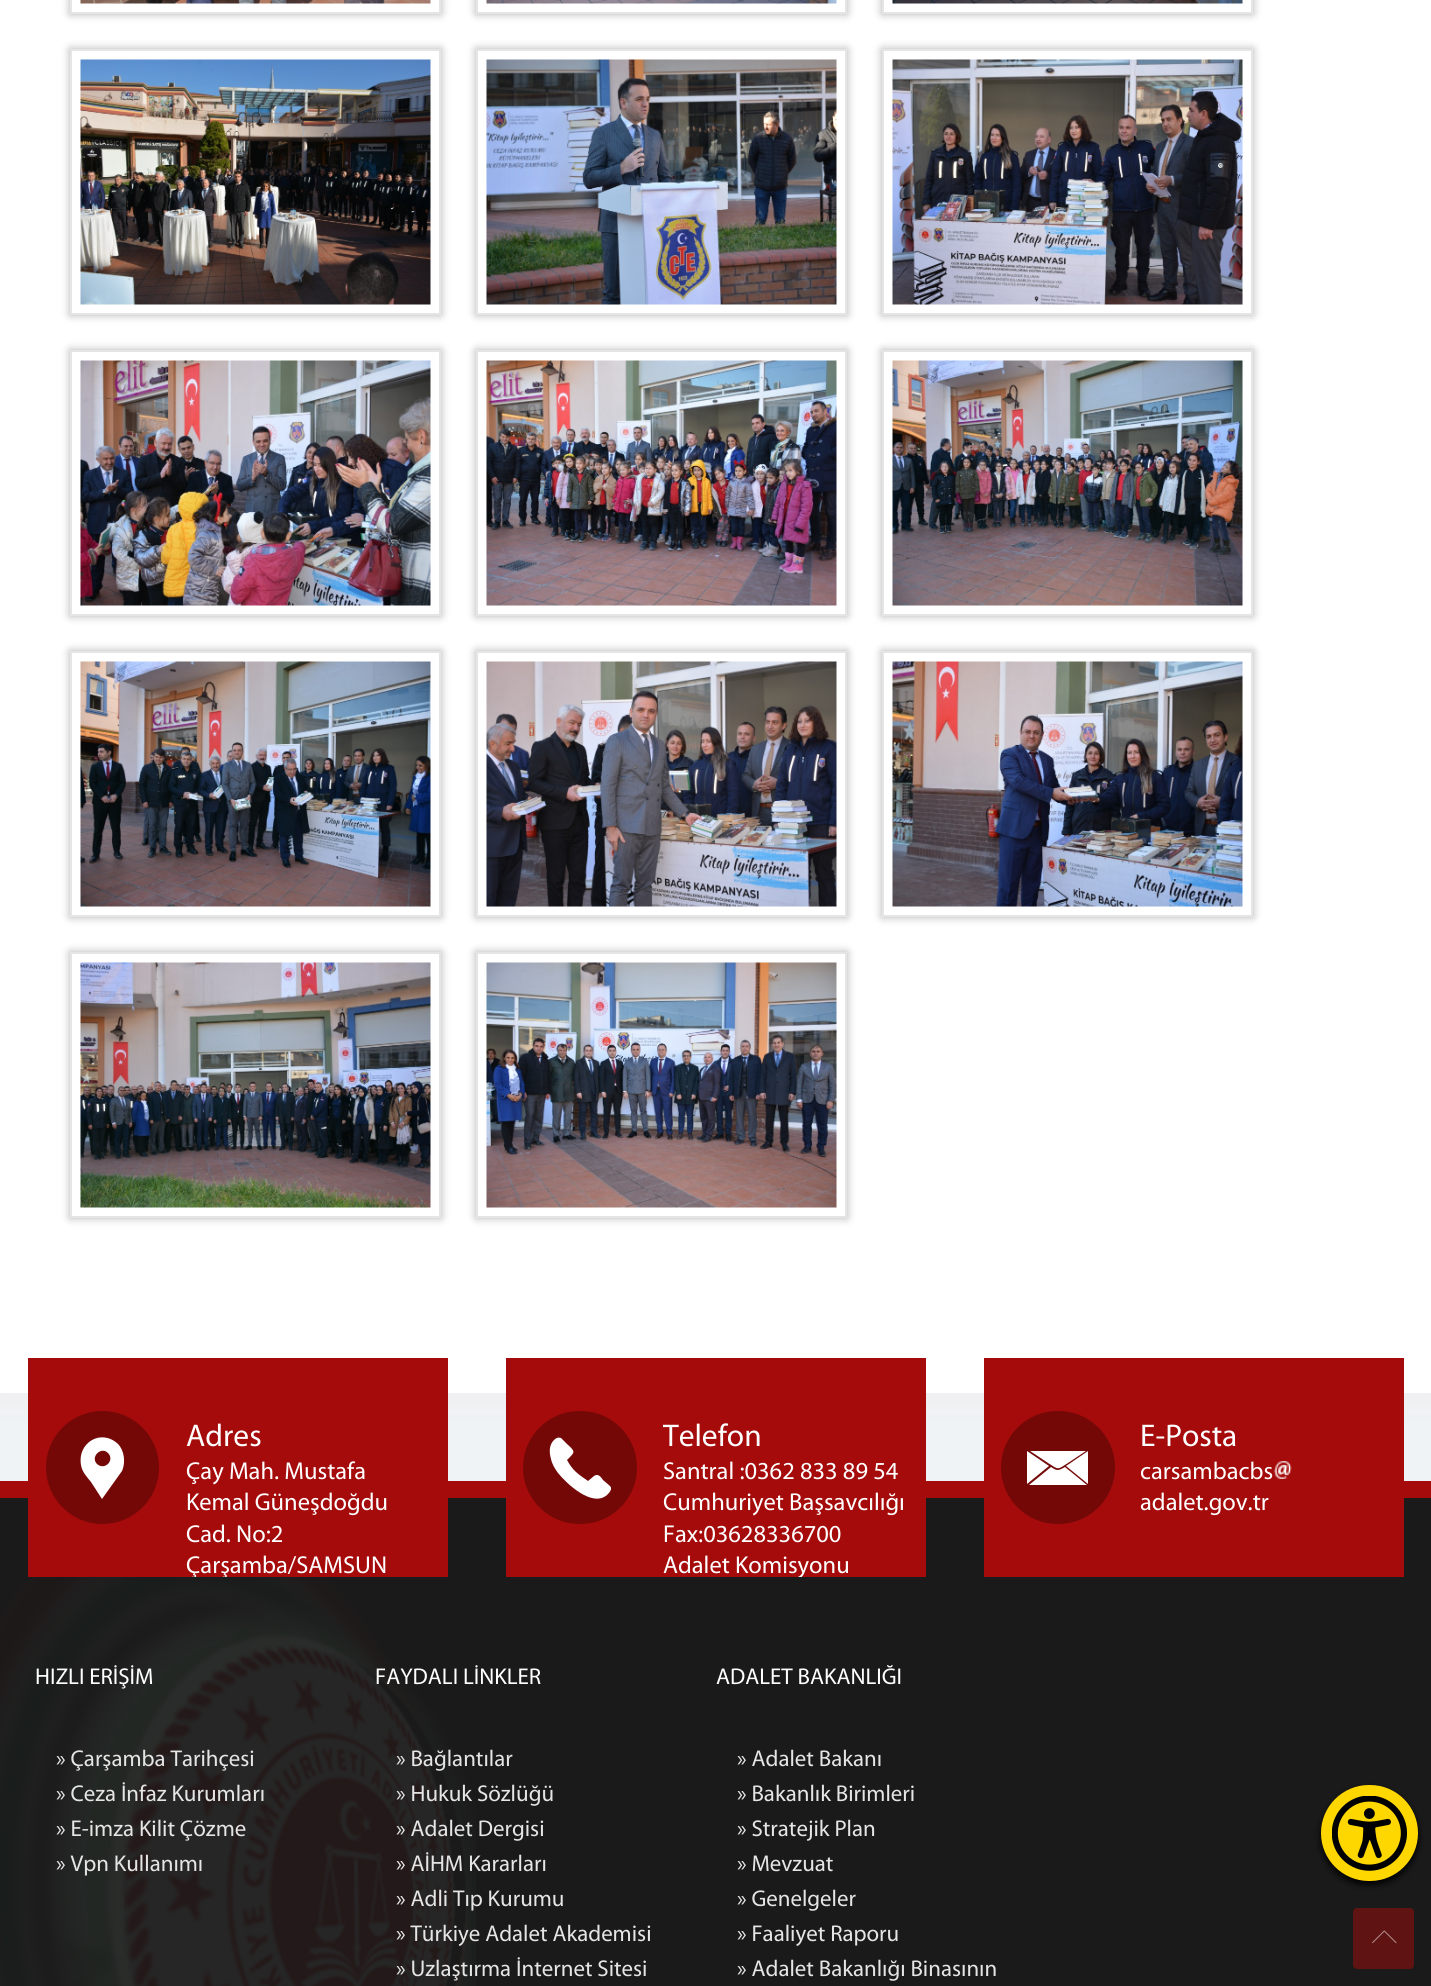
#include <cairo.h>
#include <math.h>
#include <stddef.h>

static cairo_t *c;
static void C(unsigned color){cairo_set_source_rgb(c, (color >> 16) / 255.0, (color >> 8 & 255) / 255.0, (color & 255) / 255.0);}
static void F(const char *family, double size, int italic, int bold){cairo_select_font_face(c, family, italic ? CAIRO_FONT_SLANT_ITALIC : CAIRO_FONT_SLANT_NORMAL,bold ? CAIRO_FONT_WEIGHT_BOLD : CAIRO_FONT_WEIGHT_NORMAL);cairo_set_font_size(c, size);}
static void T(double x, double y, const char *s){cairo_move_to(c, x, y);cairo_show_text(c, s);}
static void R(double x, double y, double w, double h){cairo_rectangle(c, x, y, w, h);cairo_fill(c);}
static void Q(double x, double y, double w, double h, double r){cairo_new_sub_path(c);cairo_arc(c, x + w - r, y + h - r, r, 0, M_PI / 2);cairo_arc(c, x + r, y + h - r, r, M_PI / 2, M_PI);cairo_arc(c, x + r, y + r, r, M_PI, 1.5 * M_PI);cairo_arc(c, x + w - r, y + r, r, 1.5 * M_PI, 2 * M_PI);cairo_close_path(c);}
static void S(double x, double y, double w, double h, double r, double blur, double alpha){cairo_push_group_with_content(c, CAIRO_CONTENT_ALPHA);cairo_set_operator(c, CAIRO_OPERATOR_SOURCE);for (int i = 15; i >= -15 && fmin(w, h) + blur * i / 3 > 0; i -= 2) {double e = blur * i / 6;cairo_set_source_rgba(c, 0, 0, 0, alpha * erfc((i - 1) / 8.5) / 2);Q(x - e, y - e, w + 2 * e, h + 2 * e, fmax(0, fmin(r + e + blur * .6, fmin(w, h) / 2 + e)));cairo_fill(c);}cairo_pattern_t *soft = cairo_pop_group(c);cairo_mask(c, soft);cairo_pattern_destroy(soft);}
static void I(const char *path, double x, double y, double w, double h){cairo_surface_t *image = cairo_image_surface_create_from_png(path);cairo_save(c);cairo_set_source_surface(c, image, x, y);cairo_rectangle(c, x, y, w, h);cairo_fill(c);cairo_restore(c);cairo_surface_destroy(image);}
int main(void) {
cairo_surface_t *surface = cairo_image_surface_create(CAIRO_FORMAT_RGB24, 1431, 1986);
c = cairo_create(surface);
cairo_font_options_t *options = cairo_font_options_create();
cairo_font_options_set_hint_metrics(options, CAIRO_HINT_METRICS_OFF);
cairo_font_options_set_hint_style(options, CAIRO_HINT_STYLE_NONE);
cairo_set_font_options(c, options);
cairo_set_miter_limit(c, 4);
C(0xeff3f6);
cairo_paint(c);
C(0xf1ebeb);
S(-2,-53,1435,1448,0,17.5,1);
C(0xffffff);
R(0,0,1431,1393);
cairo_save(c);
cairo_set_fill_rule(c,CAIRO_FILL_RULE_EVEN_ODD);
cairo_new_path(c);
cairo_move_to(c,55,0);
cairo_line_to(c,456,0);
cairo_line_to(c,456,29);
cairo_line_to(c,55,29);
cairo_close_path(c);
cairo_move_to(c,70,-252);
cairo_line_to(c,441,-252);
cairo_line_to(c,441,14);
cairo_line_to(c,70,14);
cairo_close_path(c);
cairo_clip(c);
C(0x000000);
S(70,-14,371,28,0,4.5,.3);
cairo_restore(c);
cairo_rectangle(c,71,-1,369,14);
C(0xe5e5e5);
cairo_stroke(c);
I("1.png",80,0,351,4);
cairo_save(c);
cairo_set_fill_rule(c,CAIRO_FILL_RULE_EVEN_ODD);
cairo_new_path(c);
cairo_move_to(c,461,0);
cairo_line_to(c,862,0);
cairo_line_to(c,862,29);
cairo_line_to(c,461,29);
cairo_close_path(c);
cairo_move_to(c,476,-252);
cairo_line_to(c,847,-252);
cairo_line_to(c,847,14);
cairo_line_to(c,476,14);
cairo_close_path(c);
cairo_clip(c);
C(0x000000);
S(476,-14,371,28,0,4.5,.3);
cairo_restore(c);
cairo_rectangle(c,477,-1,369,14);
cairo_stroke(c);
I("2.png",486,0,351,4);
cairo_save(c);
cairo_set_fill_rule(c,CAIRO_FILL_RULE_EVEN_ODD);
cairo_new_path(c);
cairo_move_to(c,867,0);
cairo_line_to(c,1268,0);
cairo_line_to(c,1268,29);
cairo_line_to(c,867,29);
cairo_close_path(c);
cairo_move_to(c,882,-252);
cairo_line_to(c,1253,-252);
cairo_line_to(c,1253,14);
cairo_line_to(c,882,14);
cairo_close_path(c);
cairo_clip(c);
C(0x000000);
S(882,-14,371,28,0,4.5,.3);
cairo_restore(c);
cairo_rectangle(c,883,-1,369,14);
cairo_stroke(c);
I("3.png",892,0,351,4);
cairo_save(c);
cairo_set_fill_rule(c,CAIRO_FILL_RULE_EVEN_ODD);
cairo_new_path(c);
cairo_move_to(c,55,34);
cairo_line_to(c,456,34);
cairo_line_to(c,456,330);
cairo_line_to(c,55,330);
cairo_close_path(c);
cairo_move_to(c,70,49);
cairo_line_to(c,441,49);
cairo_line_to(c,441,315);
cairo_line_to(c,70,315);
cairo_close_path(c);
cairo_clip(c);
C(0x000000);
S(70,49,371,266,0,4.5,.3);
cairo_restore(c);
cairo_rectangle(c,71,50,369,264);
cairo_stroke(c);
I("4.png",80,59,351,246);
cairo_save(c);
cairo_set_fill_rule(c,CAIRO_FILL_RULE_EVEN_ODD);
cairo_new_path(c);
cairo_move_to(c,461,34);
cairo_line_to(c,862,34);
cairo_line_to(c,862,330);
cairo_line_to(c,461,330);
cairo_close_path(c);
cairo_move_to(c,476,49);
cairo_line_to(c,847,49);
cairo_line_to(c,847,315);
cairo_line_to(c,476,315);
cairo_close_path(c);
cairo_clip(c);
C(0x000000);
S(476,49,371,266,0,4.5,.3);
cairo_restore(c);
cairo_rectangle(c,477,50,369,264);
cairo_stroke(c);
I("5.png",486,59,351,246);
cairo_save(c);
cairo_set_fill_rule(c,CAIRO_FILL_RULE_EVEN_ODD);
cairo_new_path(c);
cairo_move_to(c,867,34);
cairo_line_to(c,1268,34);
cairo_line_to(c,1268,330);
cairo_line_to(c,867,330);
cairo_close_path(c);
cairo_move_to(c,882,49);
cairo_line_to(c,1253,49);
cairo_line_to(c,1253,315);
cairo_line_to(c,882,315);
cairo_close_path(c);
cairo_clip(c);
C(0x000000);
S(882,49,371,266,0,4.5,.3);
cairo_restore(c);
cairo_rectangle(c,883,50,369,264);
cairo_stroke(c);
I("6.png",892,59,351,246);
cairo_save(c);
cairo_set_fill_rule(c,CAIRO_FILL_RULE_EVEN_ODD);
cairo_new_path(c);
cairo_move_to(c,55,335);
cairo_line_to(c,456,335);
cairo_line_to(c,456,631);
cairo_line_to(c,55,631);
cairo_close_path(c);
cairo_move_to(c,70,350);
cairo_line_to(c,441,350);
cairo_line_to(c,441,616);
cairo_line_to(c,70,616);
cairo_close_path(c);
cairo_clip(c);
C(0x000000);
S(70,350,371,266,0,4.5,.3);
cairo_restore(c);
cairo_rectangle(c,71,351,369,264);
cairo_stroke(c);
I("7.png",80,360,351,246);
cairo_save(c);
cairo_set_fill_rule(c,CAIRO_FILL_RULE_EVEN_ODD);
cairo_new_path(c);
cairo_move_to(c,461,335);
cairo_line_to(c,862,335);
cairo_line_to(c,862,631);
cairo_line_to(c,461,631);
cairo_close_path(c);
cairo_move_to(c,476,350);
cairo_line_to(c,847,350);
cairo_line_to(c,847,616);
cairo_line_to(c,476,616);
cairo_close_path(c);
cairo_clip(c);
C(0x000000);
S(476,350,371,266,0,4.5,.3);
cairo_restore(c);
cairo_rectangle(c,477,351,369,264);
cairo_stroke(c);
I("8.png",486,360,351,246);
cairo_save(c);
cairo_set_fill_rule(c,CAIRO_FILL_RULE_EVEN_ODD);
cairo_new_path(c);
cairo_move_to(c,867,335);
cairo_line_to(c,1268,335);
cairo_line_to(c,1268,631);
cairo_line_to(c,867,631);
cairo_close_path(c);
cairo_move_to(c,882,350);
cairo_line_to(c,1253,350);
cairo_line_to(c,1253,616);
cairo_line_to(c,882,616);
cairo_close_path(c);
cairo_clip(c);
C(0x000000);
S(882,350,371,266,0,4.5,.3);
cairo_restore(c);
cairo_rectangle(c,883,351,369,264);
cairo_stroke(c);
I("9.png",892,360,351,246);
cairo_save(c);
cairo_set_fill_rule(c,CAIRO_FILL_RULE_EVEN_ODD);
cairo_new_path(c);
cairo_move_to(c,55,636);
cairo_line_to(c,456,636);
cairo_line_to(c,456,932);
cairo_line_to(c,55,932);
cairo_close_path(c);
cairo_move_to(c,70,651);
cairo_line_to(c,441,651);
cairo_line_to(c,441,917);
cairo_line_to(c,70,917);
cairo_close_path(c);
cairo_clip(c);
C(0x000000);
S(70,651,371,266,0,4.5,.3);
cairo_restore(c);
cairo_rectangle(c,71,652,369,264);
cairo_stroke(c);
I("10.png",80,661,351,246);
cairo_save(c);
cairo_set_fill_rule(c,CAIRO_FILL_RULE_EVEN_ODD);
cairo_new_path(c);
cairo_move_to(c,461,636);
cairo_line_to(c,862,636);
cairo_line_to(c,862,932);
cairo_line_to(c,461,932);
cairo_close_path(c);
cairo_move_to(c,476,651);
cairo_line_to(c,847,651);
cairo_line_to(c,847,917);
cairo_line_to(c,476,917);
cairo_close_path(c);
cairo_clip(c);
C(0x000000);
S(476,651,371,266,0,4.5,.3);
cairo_restore(c);
cairo_rectangle(c,477,652,369,264);
cairo_stroke(c);
I("11.png",486,661,351,246);
cairo_save(c);
cairo_set_fill_rule(c,CAIRO_FILL_RULE_EVEN_ODD);
cairo_new_path(c);
cairo_move_to(c,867,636);
cairo_line_to(c,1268,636);
cairo_line_to(c,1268,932);
cairo_line_to(c,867,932);
cairo_close_path(c);
cairo_move_to(c,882,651);
cairo_line_to(c,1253,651);
cairo_line_to(c,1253,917);
cairo_line_to(c,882,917);
cairo_close_path(c);
cairo_clip(c);
C(0x000000);
S(882,651,371,266,0,4.5,.3);
cairo_restore(c);
cairo_rectangle(c,883,652,369,264);
cairo_stroke(c);
I("12.png",892,661,351,246);
cairo_save(c);
cairo_set_fill_rule(c,CAIRO_FILL_RULE_EVEN_ODD);
cairo_new_path(c);
cairo_move_to(c,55,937);
cairo_line_to(c,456,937);
cairo_line_to(c,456,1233);
cairo_line_to(c,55,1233);
cairo_close_path(c);
cairo_move_to(c,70,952);
cairo_line_to(c,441,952);
cairo_line_to(c,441,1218);
cairo_line_to(c,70,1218);
cairo_close_path(c);
cairo_clip(c);
C(0x000000);
S(70,952,371,266,0,4.5,.3);
cairo_restore(c);
cairo_rectangle(c,71,953,369,264);
cairo_stroke(c);
I("13.png",80,962,351,246);
cairo_save(c);
cairo_set_fill_rule(c,CAIRO_FILL_RULE_EVEN_ODD);
cairo_new_path(c);
cairo_move_to(c,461,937);
cairo_line_to(c,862,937);
cairo_line_to(c,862,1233);
cairo_line_to(c,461,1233);
cairo_close_path(c);
cairo_move_to(c,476,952);
cairo_line_to(c,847,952);
cairo_line_to(c,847,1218);
cairo_line_to(c,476,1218);
cairo_close_path(c);
cairo_clip(c);
C(0x000000);
S(476,952,371,266,0,4.5,.3);
cairo_restore(c);
cairo_rectangle(c,477,953,369,264);
cairo_stroke(c);
I("14.png",486,962,351,246);
C(0x1a1a1a);
R(0,1498,1431,488);
C(0xa40b0a);
R(0,1481,1431,17);
R(28,1358,420,219);
C(0x730807);
cairo_arc(c,102.5,1467.5,56.5,0,2 * M_PI);
cairo_fill(c);
C(0xffffff);
cairo_new_path(c);
cairo_move_to(c,118,1444);
cairo_curve_to(c,124,1450,126,1462,122,1471);
cairo_line_to(c,102,1499);
cairo_line_to(c,91,1482);
cairo_curve_to(c,87,1477,82,1472,81,1465);
cairo_curve_to(c,77,1443,101,1428,118,1444);
cairo_close_path(c);
cairo_move_to(c,97,1464);
cairo_curve_to(c,105,1471,115,1460,108,1453);
cairo_curve_to(c,101,1446,90,1457,97,1464);
cairo_close_path(c);
cairo_fill(c);
F("Myriad",31.5,0,0);
T(186,1446,"Adres");
F("Myriad",24.5,0,0);
T(186,1479,"Çay Mah. Mustafa");
T(186,1510,"Kemal Güneşdoğdu");
T(186,1542,"Cad. No:2");
cairo_save(c);
cairo_rectangle(c,186,1458,248,119);
cairo_clip(c);
T(186,1573,"Çarşamba/SAMSUN");
cairo_restore(c);
C(0xa40b0a);
R(506,1358,420,219);
C(0x730807);
Q(523,1411,114,113,56.5);
cairo_fill(c);
C(0xffffff);
cairo_new_path(c);
cairo_move_to(c,610,1486);
cairo_curve_to(c,613,1489,609,1493,607,1495);
cairo_curve_to(c,592,1508,566,1483,558,1473);
cairo_curve_to(c,555,1469,552,1464,551,1459);
cairo_curve_to(c,549,1452,549,1445,554,1440);
cairo_curve_to(c,556,1438,558,1437,561,1438);
cairo_line_to(c,567,1444);
cairo_curve_to(c,576,1452,575,1452,567,1460);
cairo_curve_to(c,573,1471,578,1474,588,1481);
cairo_line_to(c,594,1476);
cairo_curve_to(c,598,1473,601,1477,603,1480);
cairo_close_path(c);
cairo_fill(c);
F("Myriad",31.5,0,0);
T(663,1446,"Telefon");
F("Myriad",24.5,0,0);
T(663,1479,"Santral :0362 833 89 54");
T(663,1510,"Cumhuriyet Başsavcılığı");
T(663,1542,"Fax:03628336700");
cairo_save(c);
cairo_rectangle(c,663,1489,249,88);
cairo_clip(c);
T(663,1573,"Adalet Komisyonu");
cairo_restore(c);
C(0xa40b0a);
R(984,1358,420,219);
C(0x730807);
Q(1001,1411,114,113,56.5);
cairo_fill(c);
C(0xffffff);
cairo_new_path(c);
cairo_move_to(c,1065,1467);
cairo_line_to(c,1087,1485);
cairo_line_to(c,1029,1485);
cairo_line_to(c,1051,1467);
cairo_curve_to(c,1057,1471,1058,1471,1065,1467);
cairo_close_path(c);
cairo_move_to(c,1066,1466);
cairo_line_to(c,1088,1451);
cairo_line_to(c,1088,1484);
cairo_close_path(c);
cairo_move_to(c,1027,1451);
cairo_line_to(c,1049,1466);
cairo_line_to(c,1027,1484);
cairo_close_path(c);
cairo_move_to(c,1030,1451);
cairo_line_to(c,1086,1451);
cairo_line_to(c,1068,1463);
cairo_curve_to(c,1057,1470,1059,1470,1048,1463);
cairo_close_path(c);
cairo_fill(c);
F("Myriad",31.5,0,0);
T(1140,1446,"E-Posta");
F("Myriad",24.5,0,0);
T(1140,1479,"carsambacbs");
I("15.png",1274,1461,18,18);
T(1140,1510,"adalet.gov.tr");
I("16.png",0,1577,476,409);
F("Myriad",22.9,0,0);
T(35,1684,"HIZLI ERİŞİM");
C(0xe5e5e5);
T(56,1766,"» Çarşamba Tarihçesi");
T(56,1801,"» Ceza İnfaz Kurumları");
T(56,1836,"» E-imza Kilit Çözme");
T(56,1871,"» Vpn Kullanımı");
C(0xffffff);
T(375,1684,"FAYDALI LİNKLER");
C(0xe5e5e5);
T(396,1766,"» Bağlantılar");
T(396,1801,"» Hukuk Sözlüğü");
T(396,1836,"» Adalet Dergisi");
T(396,1871,"» AİHM Kararları");
T(396,1906,"» Adli Tıp Kurumu");
T(396,1941,"» Türkiye Adalet Akademisi");
T(396,1976,"» Uzlaştırma İnternet Sitesi");
C(0xffffff);
T(716,1684,"ADALET BAKANLIĞI");
C(0xe5e5e5);
T(737,1766,"» Adalet Bakanı");
T(737,1801,"» Bakanlık Birimleri");
T(737,1836,"» Stratejik Plan");
T(737,1871,"» Mevzuat");
T(737,1906,"» Genelgeler");
T(737,1941,"» Faaliyet Raporu");
T(737,1976,"» Adalet Bakanlığı Binasının");
C(0x000000);
S(1321,1789,97,96,48,3.5,1);
C(0xffd700);
Q(1321,1785,97,96,48);
cairo_fill(c);
I("17.png",1332,1796,75,75);
C(0x5f1312);
Q(1353,1908,61,61,4);
cairo_fill(c);
I("18.png",1372,1930,25,14);
cairo_surface_write_to_png(surface, "o.png");
cairo_font_options_destroy(options);
cairo_destroy(c);
cairo_surface_destroy(surface);
return 0;
}
